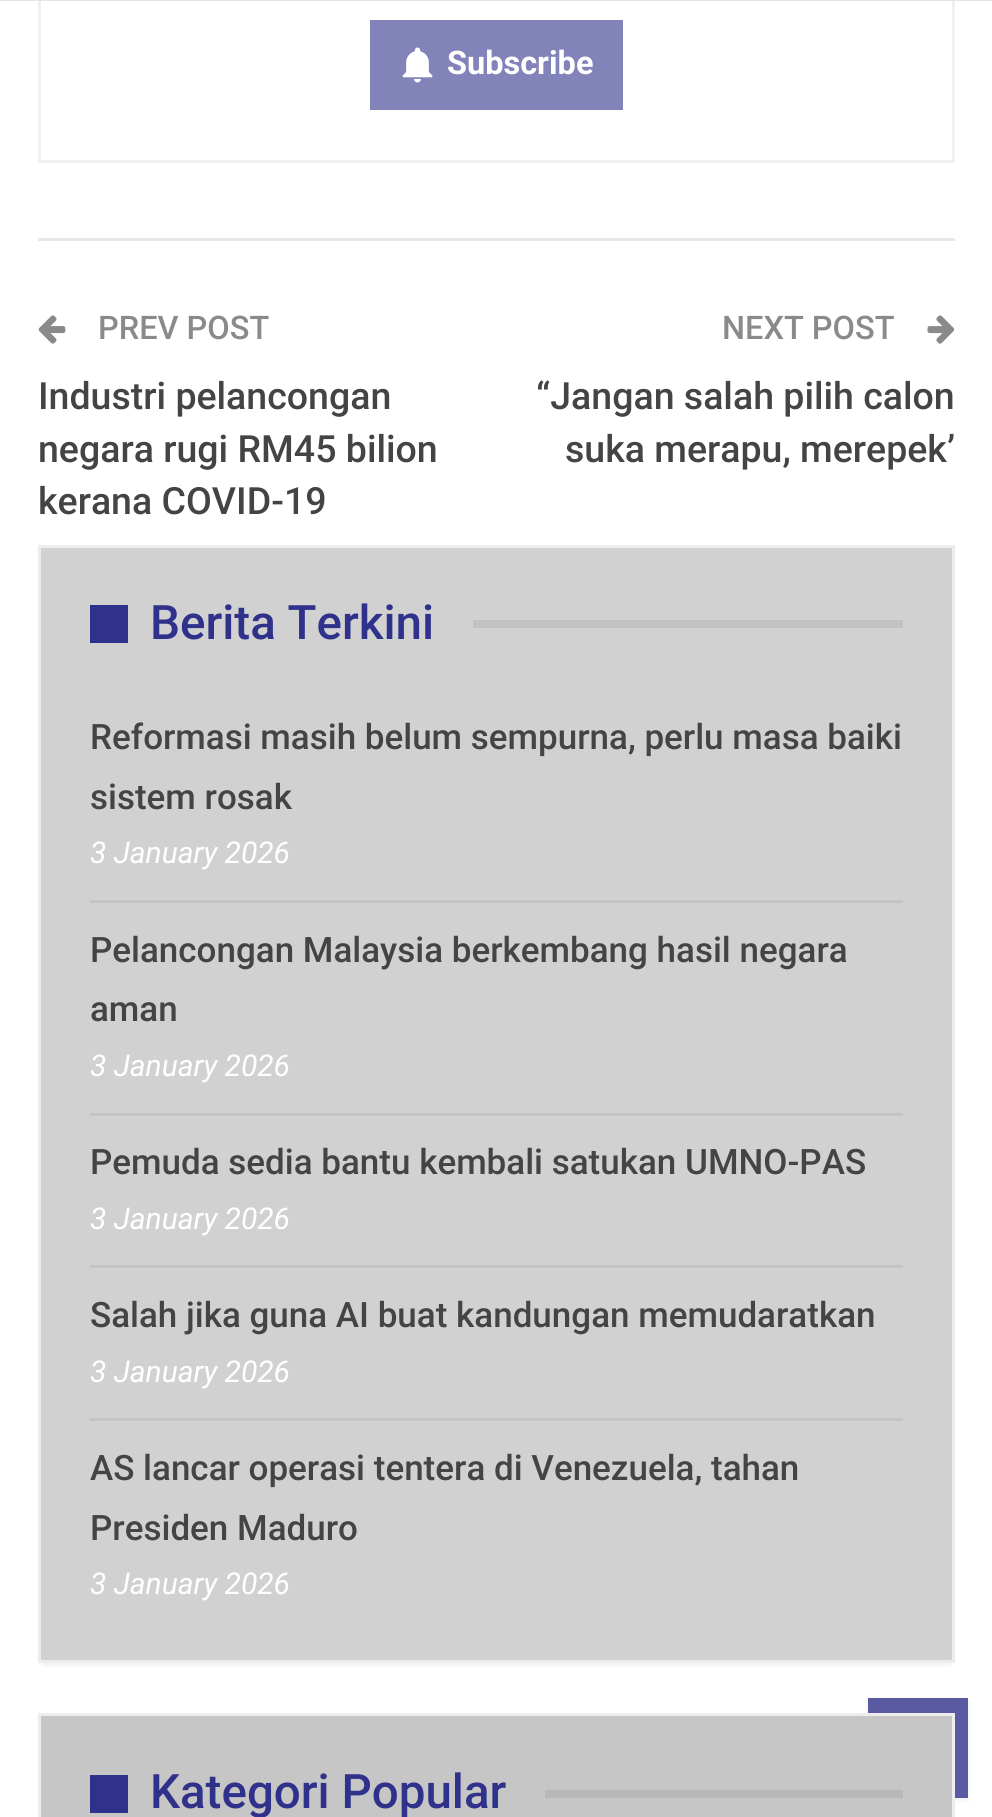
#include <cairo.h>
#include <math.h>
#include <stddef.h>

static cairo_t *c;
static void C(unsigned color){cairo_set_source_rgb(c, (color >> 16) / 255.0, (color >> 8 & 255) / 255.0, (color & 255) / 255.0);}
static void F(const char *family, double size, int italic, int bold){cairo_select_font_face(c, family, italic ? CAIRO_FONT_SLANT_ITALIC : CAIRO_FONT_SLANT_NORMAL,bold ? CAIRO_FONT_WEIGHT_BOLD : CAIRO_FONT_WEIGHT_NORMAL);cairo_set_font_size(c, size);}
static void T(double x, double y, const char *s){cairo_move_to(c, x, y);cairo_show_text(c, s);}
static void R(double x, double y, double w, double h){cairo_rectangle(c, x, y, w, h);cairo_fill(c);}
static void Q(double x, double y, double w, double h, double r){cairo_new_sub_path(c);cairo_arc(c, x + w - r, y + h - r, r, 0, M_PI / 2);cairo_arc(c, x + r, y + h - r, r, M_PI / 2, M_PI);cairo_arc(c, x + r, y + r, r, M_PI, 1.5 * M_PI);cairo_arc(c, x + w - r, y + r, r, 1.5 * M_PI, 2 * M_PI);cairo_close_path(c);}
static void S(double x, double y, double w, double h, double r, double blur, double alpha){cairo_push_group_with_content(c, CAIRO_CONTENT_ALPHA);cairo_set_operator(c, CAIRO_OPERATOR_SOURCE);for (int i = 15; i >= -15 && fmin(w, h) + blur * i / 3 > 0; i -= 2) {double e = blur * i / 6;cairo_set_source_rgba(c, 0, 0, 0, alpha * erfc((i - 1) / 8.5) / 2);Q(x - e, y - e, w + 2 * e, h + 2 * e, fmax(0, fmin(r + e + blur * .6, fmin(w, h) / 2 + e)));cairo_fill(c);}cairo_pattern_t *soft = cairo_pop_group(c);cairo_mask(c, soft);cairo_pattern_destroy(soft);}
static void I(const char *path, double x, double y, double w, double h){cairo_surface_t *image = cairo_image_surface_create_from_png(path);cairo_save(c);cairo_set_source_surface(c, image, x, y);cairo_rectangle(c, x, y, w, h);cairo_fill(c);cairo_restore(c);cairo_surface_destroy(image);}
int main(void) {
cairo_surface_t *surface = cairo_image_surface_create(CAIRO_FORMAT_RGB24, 992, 1817);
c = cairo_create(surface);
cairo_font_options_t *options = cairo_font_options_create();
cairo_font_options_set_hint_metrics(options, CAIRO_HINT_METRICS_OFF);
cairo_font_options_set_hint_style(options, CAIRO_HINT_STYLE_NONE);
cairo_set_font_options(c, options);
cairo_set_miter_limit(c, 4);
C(0xffffff);
cairo_paint(c);
cairo_rectangle(c,39.5,-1.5,914,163);
C(0xf1f1f1);
cairo_set_line_width(c,3);
cairo_stroke(c);
C(0xe5e5e5);
R(0,0,992,1);
C(0x8283b9);
R(370,20,253,90);
I("1.png",402,47,31,36);
F("Roboto",32.5,0,1);
C(0xffffff);
T(447,74,"Subscribe");
C(0xe8e8e8);
R(38,238,917,3);
I("2.png",38,315,28,29);
F("Roboto Medium",32.5,0,0);
C(0x8a8a8a);
T(98,339,"PREV POST");
F("Roboto Medium",37.5,0,0);
C(0x444444);
T(38,409,"Industri pelancongan");
T(38,462,"negara rugi RM45 bilion");
T(38,514,"kerana COVID-19");
F("Roboto Medium",32.5,0,0);
C(0x8a8a8a);
T(722,339,"NEXT POST");
I("3.png",927,315,28,29);
F("Roboto Medium",37.5,0,0);
C(0x444444);
T(536,409,"“Jangan salah pilih calon");
T(565,462,"suka merapu, merepek’");
C(0xa9a9a9);
S(43,558,907,1107,0,2.5,.2);
C(0xd1d1d1);
cairo_rectangle(c,39.5,546.5,914,1115);
cairo_fill_preserve(c);
C(0xededed);
cairo_stroke(c);
C(0x2f318b);
R(90,605,38,38);
F("Roboto Medium",47.5,0,0);
T(150,639,"Berita Terkini");
C(0xc2c2c2);
R(473,620,430,8);
C(0xc4c4c4);
R(90,900,813,3);
F("Roboto Medium",35,0,0);
C(0x444444);
T(90,749,"Reformasi masih belum sempurna, perlu masa baiki");
T(90,809,"sistem rosak");
F("Roboto",30,1,0);
C(0xffffff);
T(90,863,"3 January 2026");
C(0xc4c4c4);
R(90,1113,813,3);
F("Roboto Medium",35,0,0);
C(0x444444);
T(90,962,"Pelancongan Malaysia berkembang hasil negara");
T(90,1021,"aman");
F("Roboto",30,1,0);
C(0xffffff);
T(90,1076,"3 January 2026");
C(0xc4c4c4);
R(90,1265,813,3);
F("Roboto Medium",35,0,0);
C(0x444444);
T(90,1174,"Pemuda sedia bantu kembali satukan UMNO-PAS");
F("Roboto",30,1,0);
C(0xffffff);
T(90,1229,"3 January 2026");
C(0xc4c4c4);
R(90,1418,813,3);
F("Roboto Medium",35,0,0);
C(0x444444);
T(90,1327,"Salah jika guna AI buat kandungan memudaratkan");
F("Roboto",30,1,0);
C(0xffffff);
T(90,1382,"3 January 2026");
F("Roboto Medium",35,0,0);
C(0x444444);
T(90,1480,"AS lancar operasi tentera di Venezuela, tahan");
T(90,1540,"Presiden Maduro");
F("Roboto",30,1,0);
C(0xffffff);
T(90,1594,"3 January 2026");
C(0x333333);
S(868,1700,100,100,0,2.5,.09);
C(0x595aa2);
R(868,1698,100,100);
C(0xc6c6c6);
cairo_rectangle(c,39.5,1714.5,914,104);
cairo_fill_preserve(c);
C(0xededed);
cairo_stroke(c);
C(0x2f318b);
R(90,1775,38,38);
F("Roboto Medium",47.5,0,0);
T(150,1808,"Kategori Popular");
C(0xb8b8b8);
R(545,1790,358,8);
cairo_surface_write_to_png(surface, "o.png");
cairo_font_options_destroy(options);
cairo_destroy(c);
cairo_surface_destroy(surface);
return 0;
}
